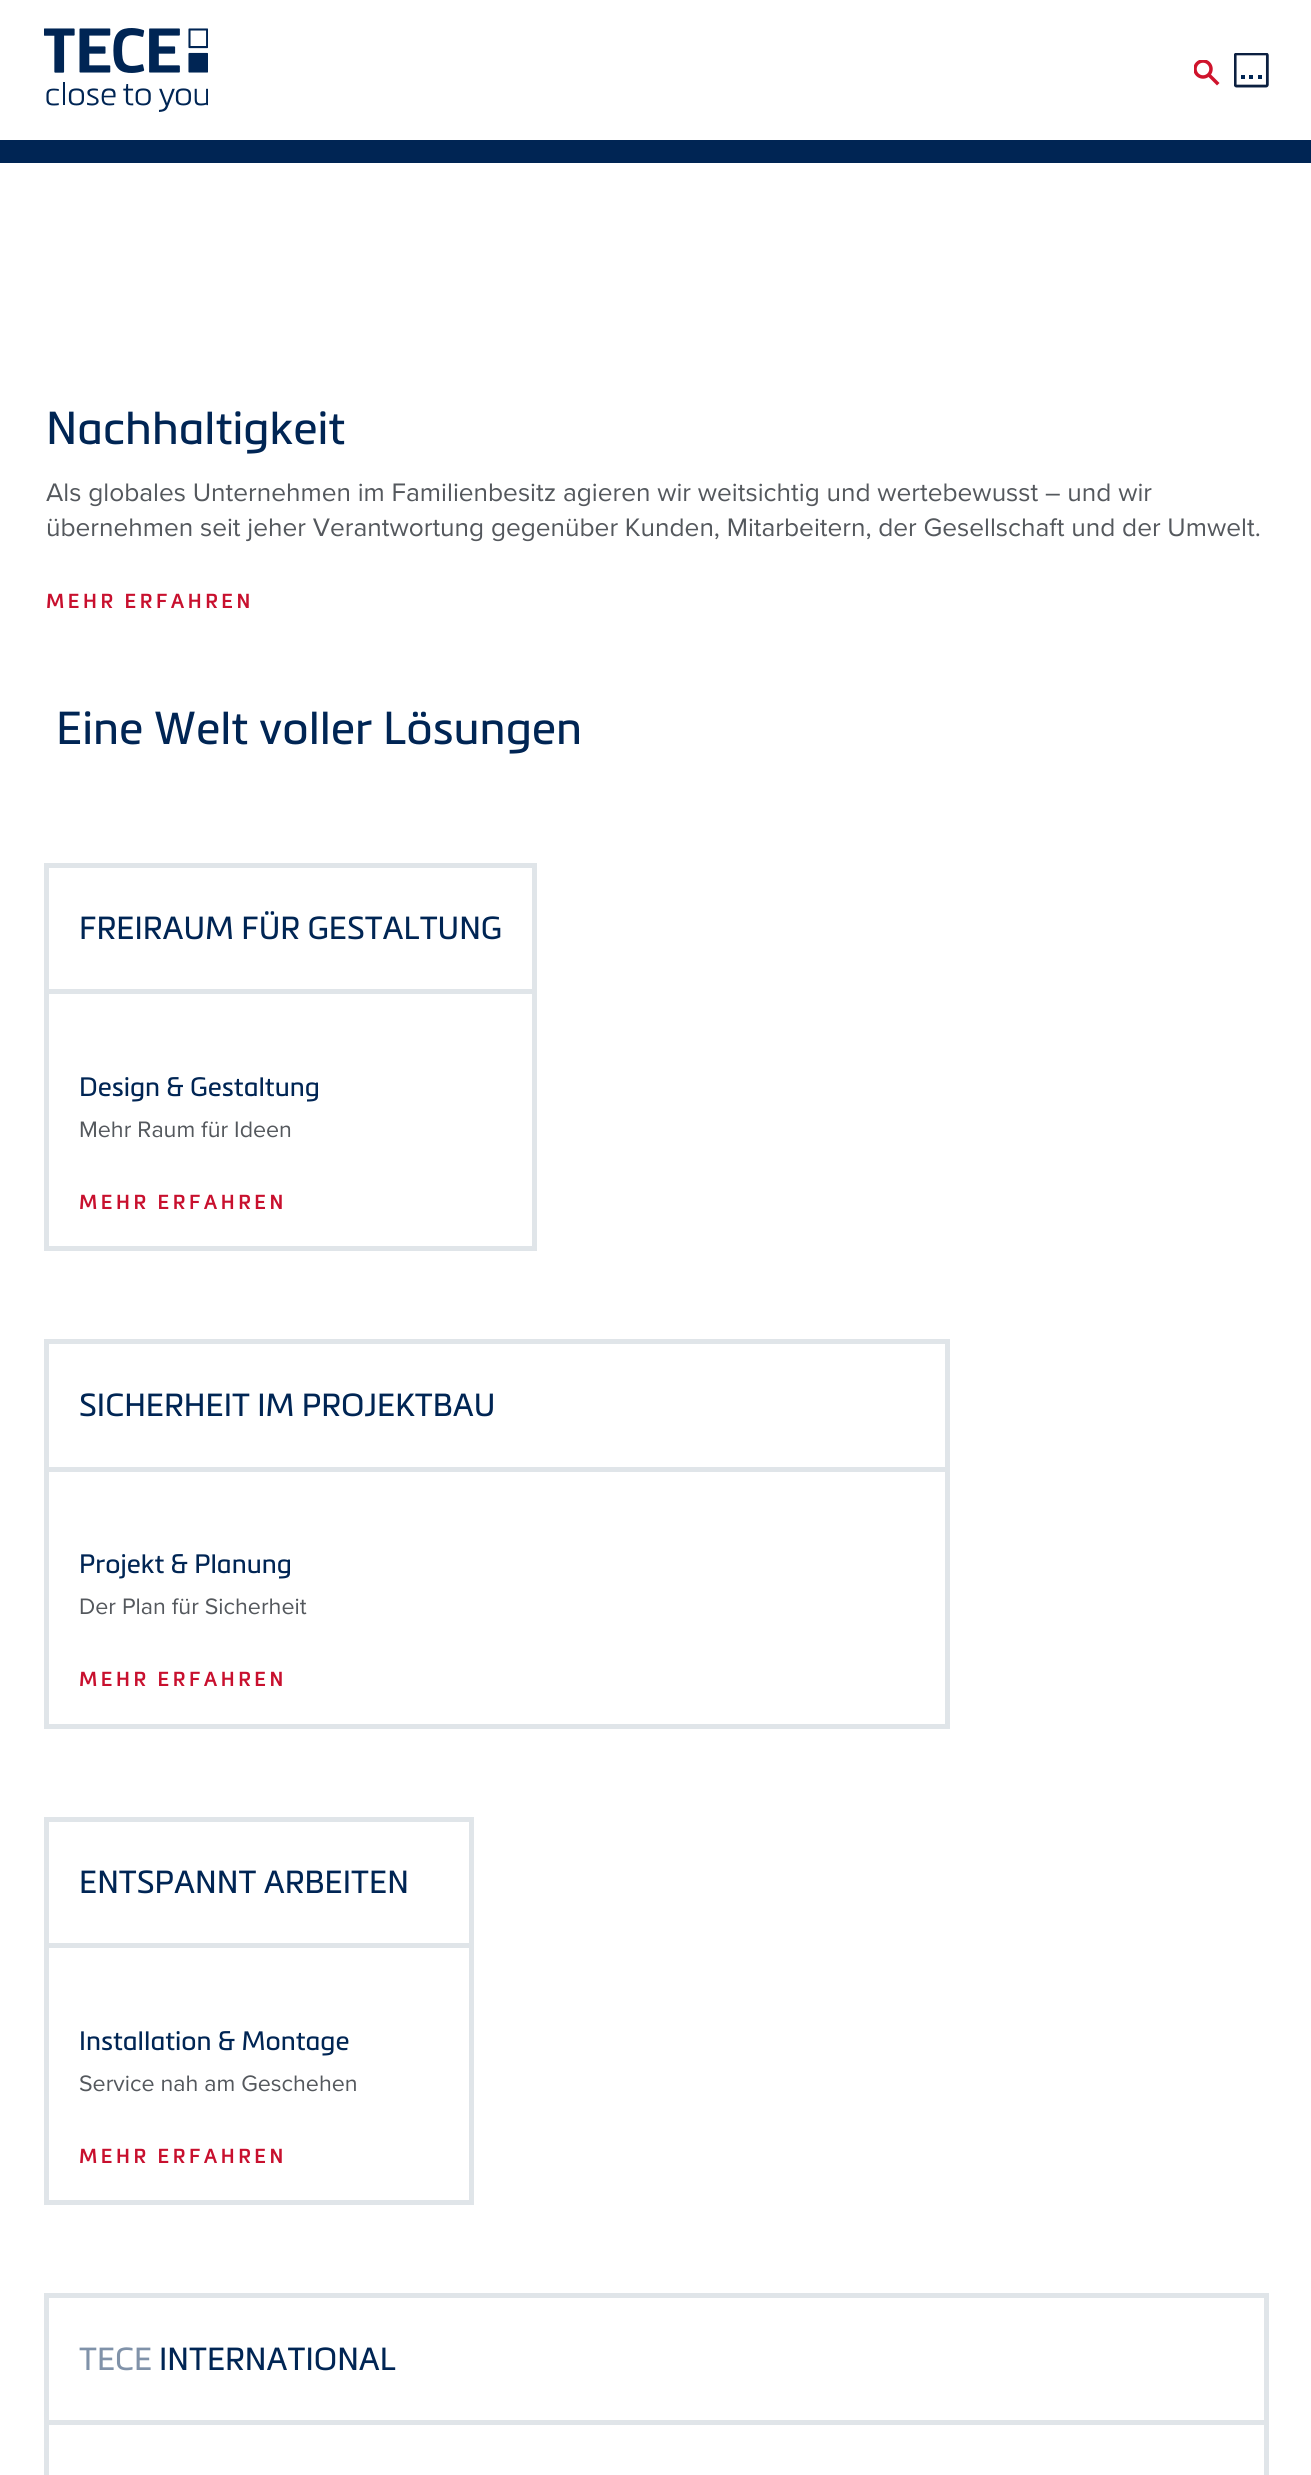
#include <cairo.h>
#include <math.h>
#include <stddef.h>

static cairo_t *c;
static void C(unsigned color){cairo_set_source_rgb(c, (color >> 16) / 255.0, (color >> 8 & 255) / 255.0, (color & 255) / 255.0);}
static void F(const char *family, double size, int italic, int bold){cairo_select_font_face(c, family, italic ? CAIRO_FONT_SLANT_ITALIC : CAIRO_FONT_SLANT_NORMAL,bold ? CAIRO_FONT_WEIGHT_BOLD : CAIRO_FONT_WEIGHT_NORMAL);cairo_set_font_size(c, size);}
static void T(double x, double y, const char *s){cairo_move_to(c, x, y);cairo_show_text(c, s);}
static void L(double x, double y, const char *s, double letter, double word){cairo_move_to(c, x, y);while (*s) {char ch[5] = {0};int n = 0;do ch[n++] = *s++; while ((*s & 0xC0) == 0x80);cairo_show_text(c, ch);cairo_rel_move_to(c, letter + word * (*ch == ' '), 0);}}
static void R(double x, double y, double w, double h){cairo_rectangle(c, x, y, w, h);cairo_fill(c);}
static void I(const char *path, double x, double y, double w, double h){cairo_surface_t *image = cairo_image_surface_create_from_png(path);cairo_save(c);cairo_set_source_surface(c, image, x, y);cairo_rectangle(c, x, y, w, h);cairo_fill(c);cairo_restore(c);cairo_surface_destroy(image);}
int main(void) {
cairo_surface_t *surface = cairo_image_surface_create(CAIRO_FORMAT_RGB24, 1311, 2475);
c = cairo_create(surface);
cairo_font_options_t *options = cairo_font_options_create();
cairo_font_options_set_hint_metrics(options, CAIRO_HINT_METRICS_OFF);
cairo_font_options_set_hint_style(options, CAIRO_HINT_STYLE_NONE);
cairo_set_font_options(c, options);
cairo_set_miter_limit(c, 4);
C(0xffffff);
cairo_paint(c);
I("1.png",44,28,164,84);
cairo_save(c);
cairo_rectangle(c,1194,60,26,26);
cairo_clip(c);
cairo_arc(c,1203,69,8,0,2 * M_PI);
C(0xcf132c);
cairo_set_line_width(c,3.5);
cairo_stroke(c);
cairo_restore(c);
cairo_new_path(c);
cairo_move_to(c,1209.5,75.5);
cairo_line_to(c,1217,83);
C(0xcf132c);
cairo_set_line_width(c,3.5);
cairo_set_line_cap(c,CAIRO_LINE_CAP_SQUARE);
cairo_stroke(c);
I("2.png",1234,53,35,35);
C(0x002554);
R(0,140,1311,23);
F("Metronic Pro",45.5,0,0);
T(46,444,"Nachhaltigkeit");
F("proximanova",26.25,0,0);
C(0x54585d);
T(46,501,"Als globales Unternehmen im Familienbesitz agieren wir weitsichtig und wertebewusst – und wir");
T(46,536,"übernehmen seit jeher Verantwortung gegenüber Kunden, Mitarbeitern, der Gesellschaft und der Umwelt.");
F("Metronic Pro SemiBold",20,0,0);
C(0xc8102e);
L(46,608,"MEHR ERFAHREN",3.5,0);
F("Metronic Pro",45.5,0,0);
C(0x002554);
T(56,744,"Eine Welt voller Lösungen");
cairo_rectangle(c,46.5,865.5,488,383);
C(0xe0e5e9);
cairo_set_line_width(c,5);
cairo_set_line_cap(c,CAIRO_LINE_CAP_BUTT);
cairo_stroke(c);
R(49,989,483,5);
F("Metronic Pro",31.5,0,0);
C(0x002554);
T(79,939,"FREIRAUM FÜR GESTALTUNG");
F("Metronic Pro",26.25,0,0);
T(79,1096,"Design & Gestaltung");
F("proximanova",23.2,0,0);
C(0x54585d);
T(79,1137,"Mehr Raum für Ideen");
F("Metronic Pro SemiBold",20,0,0);
C(0xc8102e);
L(79,1209,"MEHR ERFAHREN",3.5,0);
cairo_rectangle(c,46.5,1341.5,901,385);
C(0xe0e5e9);
cairo_stroke(c);
R(49,1467,896,5);
F("Metronic Pro",31.5,0,0);
C(0x002554);
T(79,1416,"SICHERHEIT IM PROJEKTBAU");
F("Metronic Pro",26.25,0,0);
T(79,1573,"Projekt & Planung");
F("proximanova",23.2,0,0);
C(0x54585d);
T(79,1614,"Der Plan für Sicherheit");
F("Metronic Pro SemiBold",20,0,0);
C(0xc8102e);
L(79,1686,"MEHR ERFAHREN",3.5,0);
cairo_rectangle(c,46.5,1819.5,425,383);
C(0xe0e5e9);
cairo_stroke(c);
R(49,1943,420,5);
F("Metronic Pro",31.5,0,0);
C(0x002554);
T(79,1893,"ENTSPANNT ARBEITEN");
F("Metronic Pro",26.25,0,0);
T(79,2050,"Installation & Montage");
F("proximanova",23.2,0,0);
C(0x54585d);
T(79,2091,"Service nah am Geschehen");
F("Metronic Pro SemiBold",20,0,0);
C(0xc8102e);
L(79,2163,"MEHR ERFAHREN",3.5,0);
cairo_rectangle(c,46.5,2295.5,1220,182);
C(0xe0e5e9);
cairo_stroke(c);
R(49,2420,1215,5);
F("Metronic Pro",31.5,0,0);
C(0x8092a9);
T(79,2370,"TECE");
C(0x002554);
T(159,2370,"INTERNATIONAL");
cairo_surface_write_to_png(surface, "o.png");
cairo_font_options_destroy(options);
cairo_destroy(c);
cairo_surface_destroy(surface);
return 0;
}
